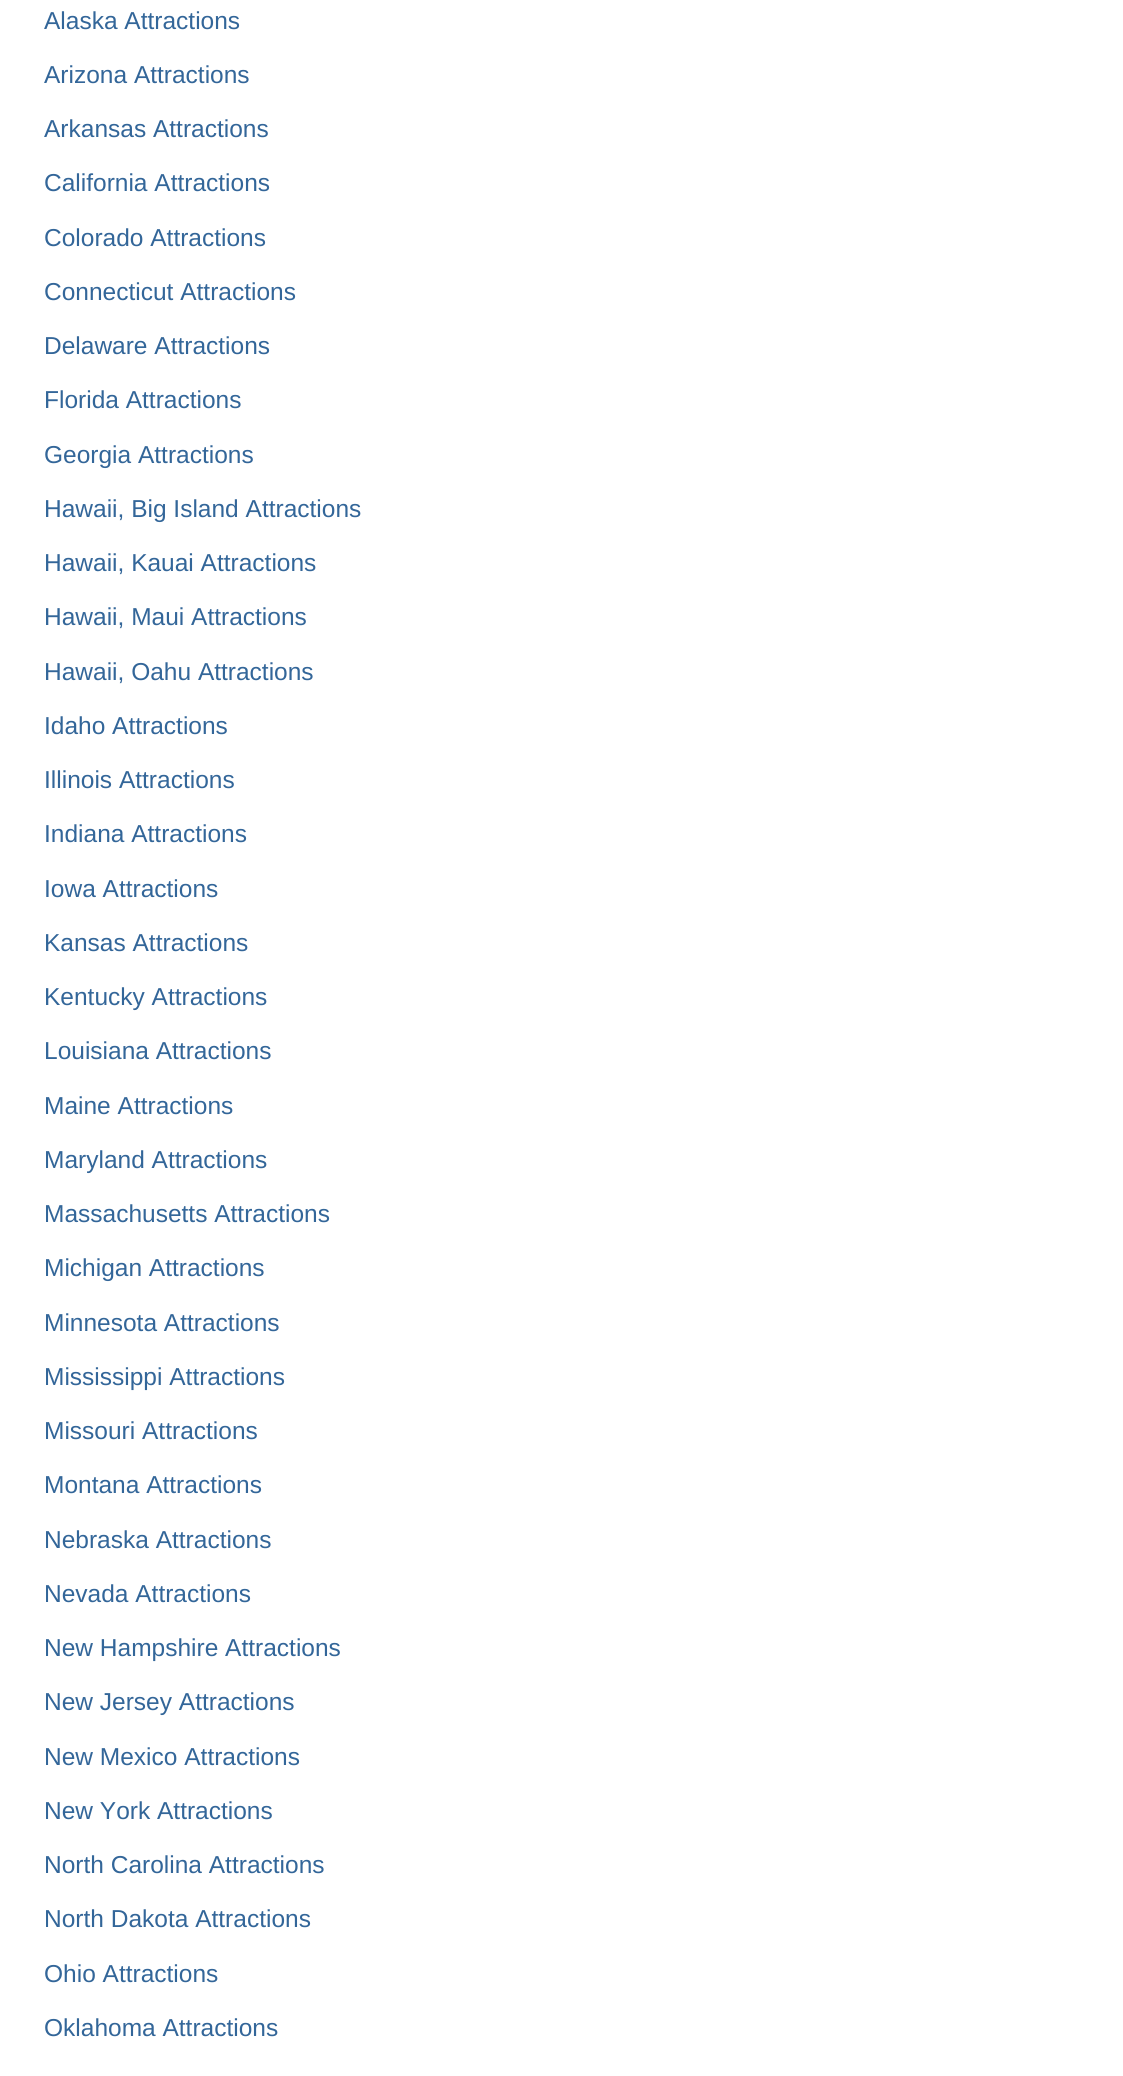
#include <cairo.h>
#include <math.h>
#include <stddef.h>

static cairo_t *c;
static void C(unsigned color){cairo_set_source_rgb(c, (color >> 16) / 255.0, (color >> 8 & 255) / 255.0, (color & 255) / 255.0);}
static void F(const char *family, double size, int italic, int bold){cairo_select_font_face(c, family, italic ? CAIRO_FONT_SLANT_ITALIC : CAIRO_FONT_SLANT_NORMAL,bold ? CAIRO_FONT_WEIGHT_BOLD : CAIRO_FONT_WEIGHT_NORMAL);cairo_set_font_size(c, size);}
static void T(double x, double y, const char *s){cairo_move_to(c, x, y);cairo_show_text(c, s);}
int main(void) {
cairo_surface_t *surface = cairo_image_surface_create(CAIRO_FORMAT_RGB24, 1123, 2076);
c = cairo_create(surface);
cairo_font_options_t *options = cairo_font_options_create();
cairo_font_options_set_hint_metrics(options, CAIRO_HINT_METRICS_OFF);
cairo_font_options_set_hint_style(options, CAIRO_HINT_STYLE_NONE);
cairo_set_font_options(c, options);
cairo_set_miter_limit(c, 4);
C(0xffffff);
cairo_paint(c);
F("Liberation Sans",24.5,0,0);
C(0x336699);
T(44,29,"Alaska Attractions");
T(44,83,"Arizona Attractions");
T(44,137,"Arkansas Attractions");
T(44,191,"California Attractions");
T(44,246,"Colorado Attractions");
T(44,300,"Connecticut Attractions");
T(44,354,"Delaware Attractions");
T(44,408,"Florida Attractions");
T(44,463,"Georgia Attractions");
T(44,517,"Hawaii, Big Island Attractions");
T(44,571,"Hawaii, Kauai Attractions");
T(44,625,"Hawaii, Maui Attractions");
T(44,680,"Hawaii, Oahu Attractions");
T(44,734,"Idaho Attractions");
T(44,788,"Illinois Attractions");
T(44,842,"Indiana Attractions");
T(44,897,"Iowa Attractions");
T(44,951,"Kansas Attractions");
T(44,1005,"Kentucky Attractions");
T(44,1059,"Louisiana Attractions");
T(44,1114,"Maine Attractions");
T(44,1168,"Maryland Attractions");
T(44,1222,"Massachusetts Attractions");
T(44,1276,"Michigan Attractions");
T(44,1331,"Minnesota Attractions");
T(44,1385,"Mississippi Attractions");
T(44,1439,"Missouri Attractions");
T(44,1493,"Montana Attractions");
T(44,1548,"Nebraska Attractions");
T(44,1602,"Nevada Attractions");
T(44,1656,"New Hampshire Attractions");
T(44,1710,"New Jersey Attractions");
T(44,1765,"New Mexico Attractions");
T(44,1819,"New York Attractions");
T(44,1873,"North Carolina Attractions");
T(44,1927,"North Dakota Attractions");
T(44,1982,"Ohio Attractions");
T(44,2036,"Oklahoma Attractions");
cairo_surface_write_to_png(surface, "o.png");
cairo_font_options_destroy(options);
cairo_destroy(c);
cairo_surface_destroy(surface);
return 0;
}
